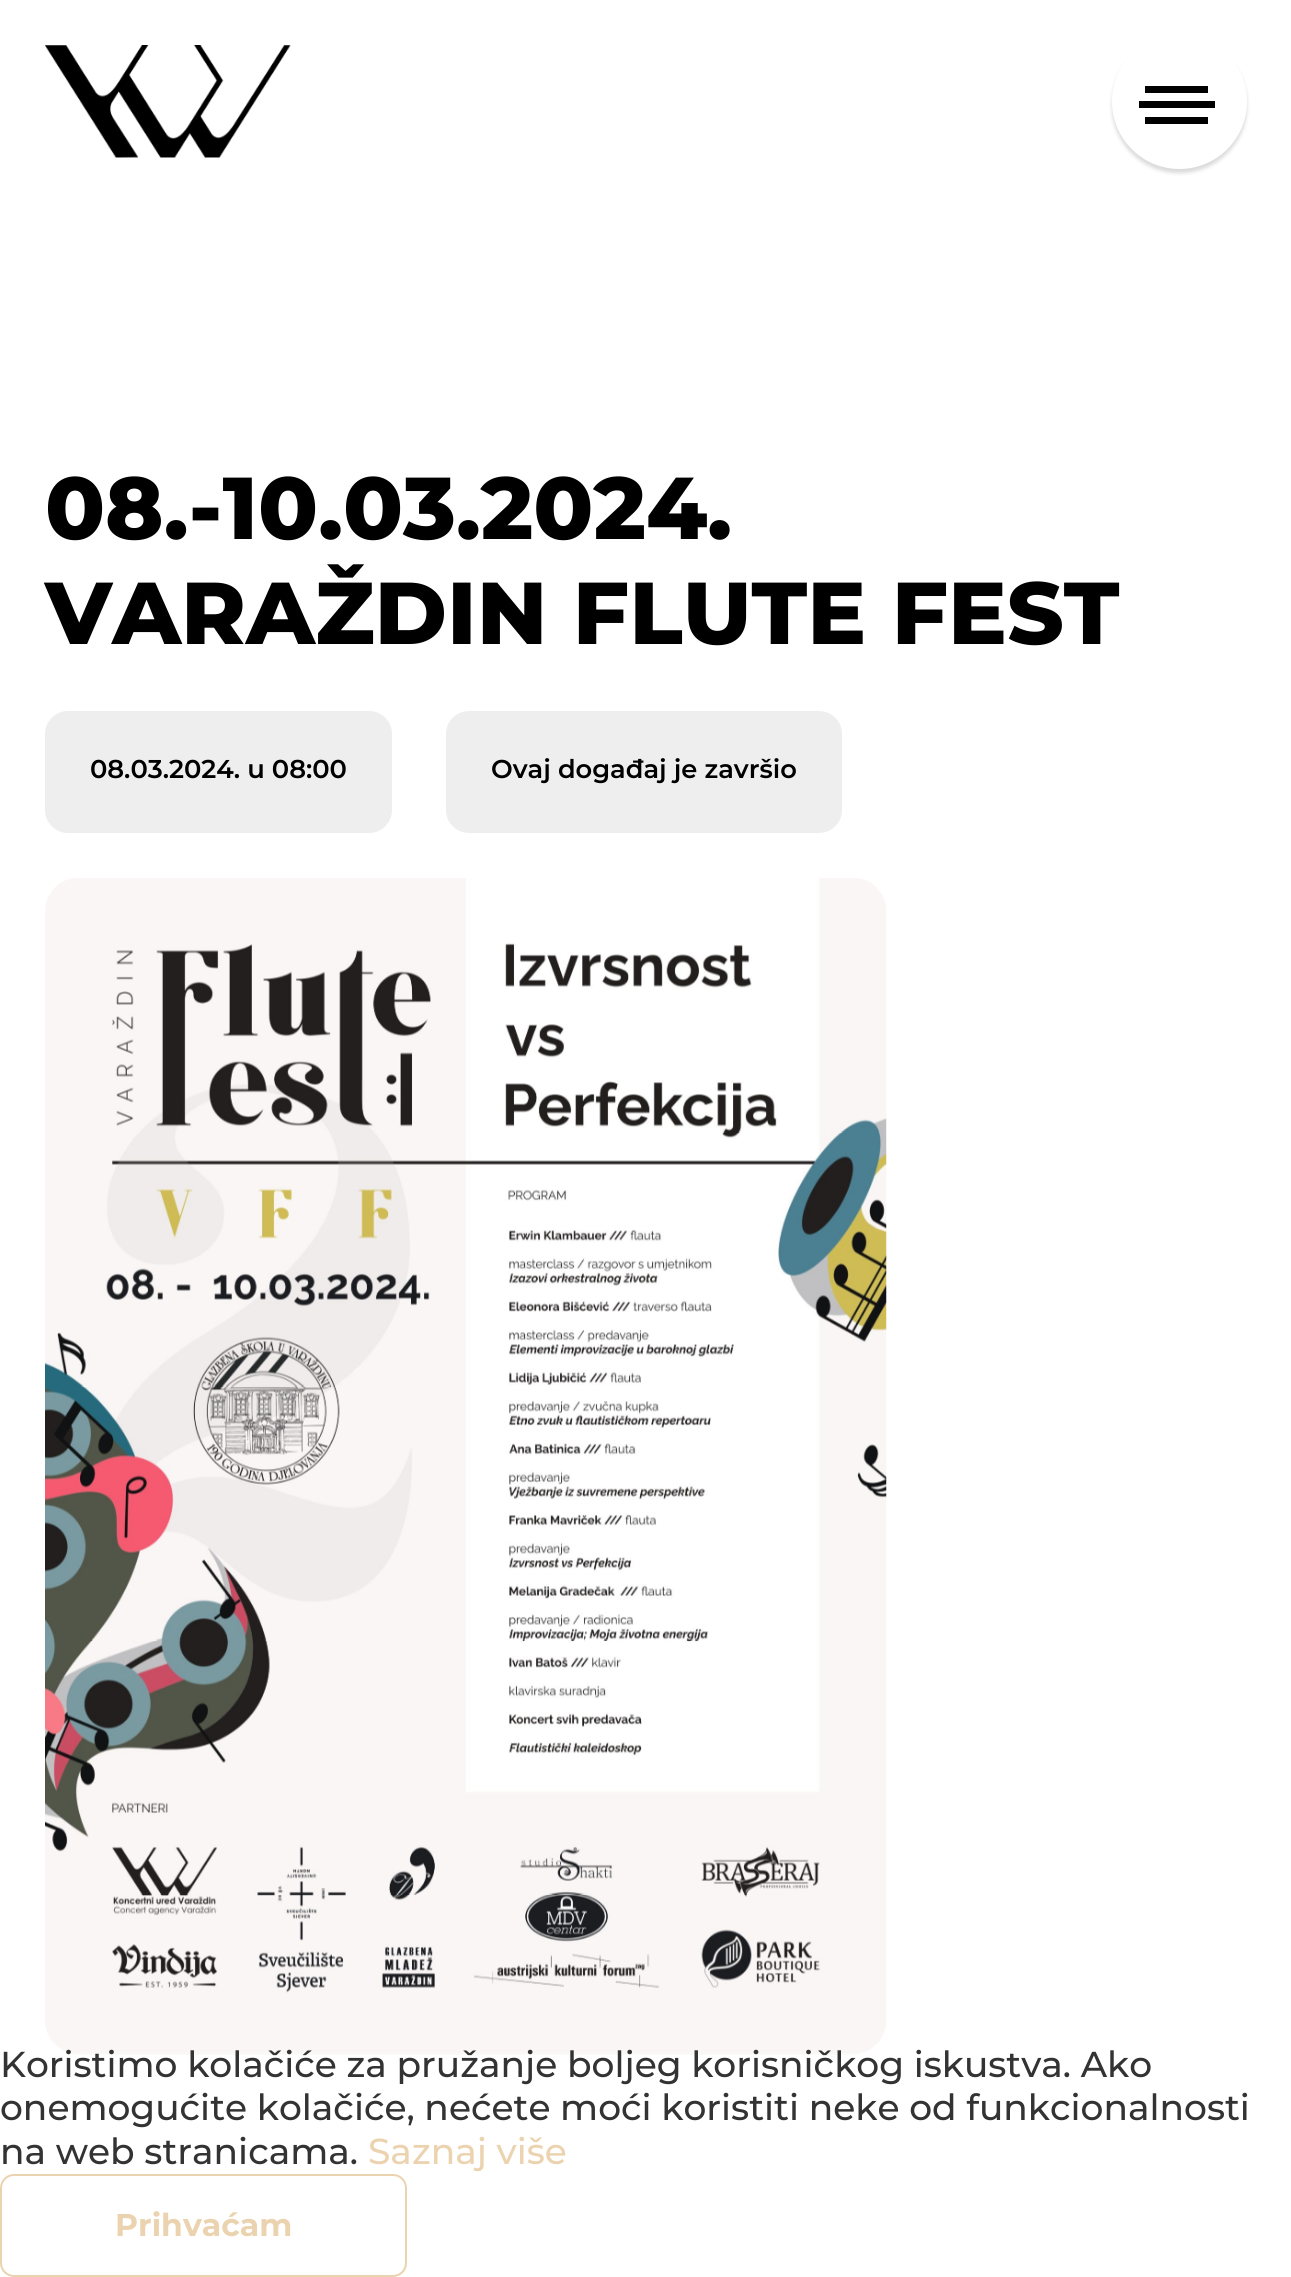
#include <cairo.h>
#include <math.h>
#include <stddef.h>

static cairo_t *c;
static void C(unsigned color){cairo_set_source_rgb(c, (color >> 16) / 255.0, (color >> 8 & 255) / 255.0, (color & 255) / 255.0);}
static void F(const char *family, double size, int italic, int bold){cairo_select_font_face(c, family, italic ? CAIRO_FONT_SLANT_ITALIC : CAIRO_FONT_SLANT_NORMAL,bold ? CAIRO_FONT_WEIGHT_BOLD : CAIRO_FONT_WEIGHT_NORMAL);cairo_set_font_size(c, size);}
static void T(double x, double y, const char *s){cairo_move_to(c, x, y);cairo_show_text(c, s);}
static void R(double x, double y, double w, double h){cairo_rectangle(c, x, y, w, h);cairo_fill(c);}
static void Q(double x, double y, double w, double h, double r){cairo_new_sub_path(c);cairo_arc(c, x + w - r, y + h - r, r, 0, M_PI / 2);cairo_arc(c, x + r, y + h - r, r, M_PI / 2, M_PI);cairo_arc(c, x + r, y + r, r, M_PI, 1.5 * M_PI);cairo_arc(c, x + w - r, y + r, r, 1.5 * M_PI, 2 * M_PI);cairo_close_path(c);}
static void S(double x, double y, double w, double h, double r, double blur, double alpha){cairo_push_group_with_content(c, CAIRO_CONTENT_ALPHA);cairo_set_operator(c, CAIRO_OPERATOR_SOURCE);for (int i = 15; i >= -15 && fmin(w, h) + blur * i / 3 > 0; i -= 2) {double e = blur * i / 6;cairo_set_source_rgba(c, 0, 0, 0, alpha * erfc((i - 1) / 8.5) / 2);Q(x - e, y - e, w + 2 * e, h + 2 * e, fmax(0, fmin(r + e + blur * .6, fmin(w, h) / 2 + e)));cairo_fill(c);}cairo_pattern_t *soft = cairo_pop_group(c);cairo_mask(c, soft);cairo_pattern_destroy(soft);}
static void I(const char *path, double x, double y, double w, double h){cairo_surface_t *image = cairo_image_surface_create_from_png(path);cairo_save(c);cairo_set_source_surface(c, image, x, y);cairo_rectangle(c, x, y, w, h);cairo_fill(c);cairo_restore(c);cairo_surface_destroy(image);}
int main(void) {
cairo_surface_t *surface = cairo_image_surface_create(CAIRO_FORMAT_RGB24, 1291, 2277);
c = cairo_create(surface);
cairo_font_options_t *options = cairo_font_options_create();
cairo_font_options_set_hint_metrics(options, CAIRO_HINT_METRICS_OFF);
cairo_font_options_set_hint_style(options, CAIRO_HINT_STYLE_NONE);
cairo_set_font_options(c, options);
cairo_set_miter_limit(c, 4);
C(0xffffff);
cairo_paint(c);
I("1.png",45,45,246,113);
C(0x000000);
S(1112,38,135,135,67.5,2,.15);
C(0xffffff);
cairo_arc(c,1179.5,101.5,67.5,0,2 * M_PI);
cairo_fill(c);
C(0x000000);
R(1139,101,76,7);
R(1145,86,63,7);
R(1145,117,63,7);
F("Montserrat ExtraBold",87.7,0,0);
T(45,539,"08.-10.03.2024.");
T(45,644,"VARAŽDIN FLUTE FEST");
C(0xeeeeee);
Q(45,711,347,122,23);
cairo_fill(c);
F("Montserrat SemiBold",25.75,0,0);
C(0x000000);
T(90,778,"08.03.2024. u 08:00");
C(0xeeeeee);
Q(446,711,396,122,23);
cairo_fill(c);
C(0x000000);
T(491,778,"Ovaj događaj je završio");
I("2.png",45,878,842,1177);
F("Montserrat Medium",36,0,0);
C(0x333333);
T(0,2077,"Koristimo kolačiće za pružanje boljeg korisničkog iskustva. Ako");
T(0,2120,"onemogućite kolačiće, nećete moći koristiti neke od funkcionalnosti");
T(0,2164,"na web stranicama.");
C(0xebd3af);
T(368,2164,"Saznaj više");
Q(1,2175,405,101,13);
cairo_stroke(c);
F("Montserrat",31.5,0,1);
T(115,2236,"Prihvaćam");
cairo_surface_write_to_png(surface, "o.png");
cairo_font_options_destroy(options);
cairo_destroy(c);
cairo_surface_destroy(surface);
return 0;
}
